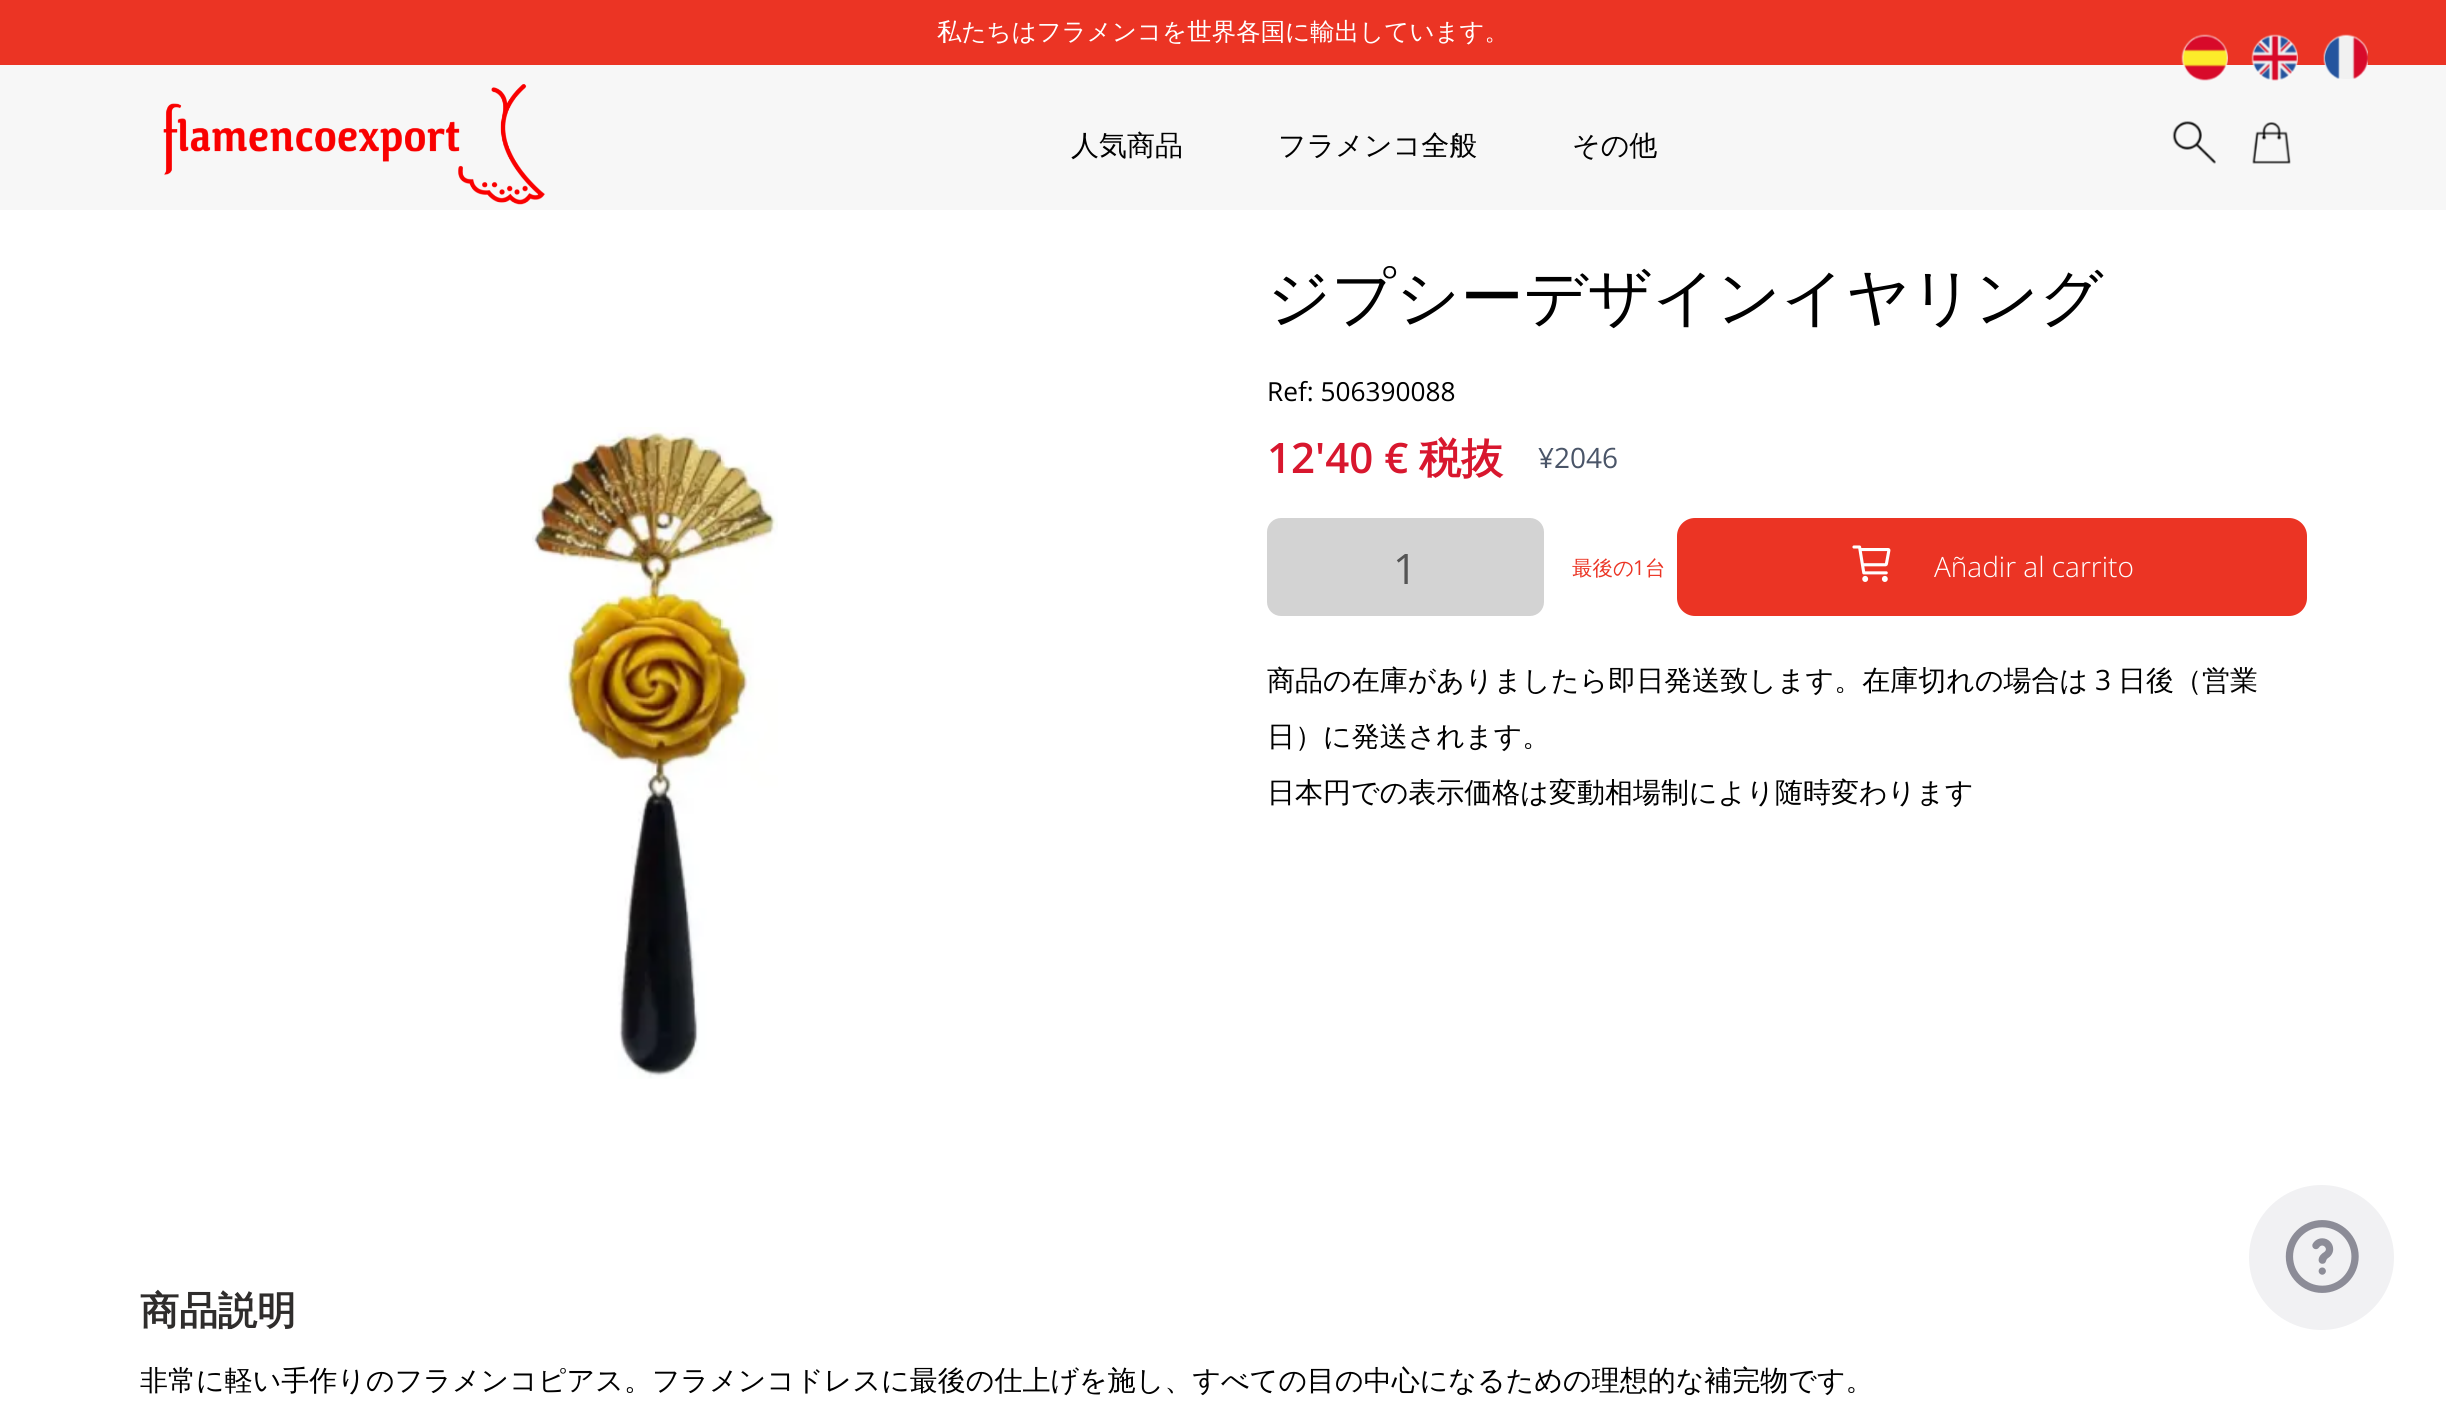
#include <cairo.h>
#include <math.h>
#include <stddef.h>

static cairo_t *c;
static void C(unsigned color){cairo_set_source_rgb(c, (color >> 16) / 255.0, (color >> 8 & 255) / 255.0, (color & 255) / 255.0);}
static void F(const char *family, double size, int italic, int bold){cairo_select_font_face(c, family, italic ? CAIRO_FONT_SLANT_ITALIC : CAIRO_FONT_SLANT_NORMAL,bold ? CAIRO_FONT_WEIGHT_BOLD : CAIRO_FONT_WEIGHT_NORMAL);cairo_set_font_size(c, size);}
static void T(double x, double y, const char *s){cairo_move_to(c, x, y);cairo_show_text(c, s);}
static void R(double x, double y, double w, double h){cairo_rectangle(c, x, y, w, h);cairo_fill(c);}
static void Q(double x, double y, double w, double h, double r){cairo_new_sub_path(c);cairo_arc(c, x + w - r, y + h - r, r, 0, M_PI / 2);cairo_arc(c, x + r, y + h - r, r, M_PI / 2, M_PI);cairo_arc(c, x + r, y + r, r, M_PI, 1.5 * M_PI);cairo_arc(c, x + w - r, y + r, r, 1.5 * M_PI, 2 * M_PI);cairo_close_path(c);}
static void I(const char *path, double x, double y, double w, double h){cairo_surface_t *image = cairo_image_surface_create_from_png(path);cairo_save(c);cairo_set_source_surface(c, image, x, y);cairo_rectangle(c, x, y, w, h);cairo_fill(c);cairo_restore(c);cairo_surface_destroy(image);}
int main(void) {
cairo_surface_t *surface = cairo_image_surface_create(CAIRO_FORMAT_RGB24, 2446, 1406);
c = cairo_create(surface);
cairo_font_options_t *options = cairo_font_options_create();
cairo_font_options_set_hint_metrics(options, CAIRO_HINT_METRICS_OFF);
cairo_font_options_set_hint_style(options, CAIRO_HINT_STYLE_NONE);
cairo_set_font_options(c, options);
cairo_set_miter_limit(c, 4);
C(0xffffff);
cairo_paint(c);
C(0xeb3424);
R(0,0,2446,65);
F("WenQuanYi Zen Hei Medium",24.5,0,0);
C(0xffffff);
T(937,40,"私たちはフラメンコを世界各国に輸出しています。");
C(0xf7f7f7);
R(0,65,2446,145);
I("1.png",2181,34,47,47);
I("2.png",2251,34,47,47);
I("3.png",2323,34,45,45);
I("4.png",163,84,382,121);
F("WenQuanYi Zen Hei Medium",28,0,0);
C(0x000000);
T(1071,155,"人気商品");
T(1278,155,"フラメンコ全般");
T(1572,155,"その他");
I("5.png",2172,121,44,43);
I("6.png",2252,122,39,42);
I("7.png",532,427,246,652);
F("WenQuanYi Zen Hei Medium",63,0,0);
T(1267,319,"ジプシーデザインイヤリング");
F("Open Sans",26.25,0,0);
T(1267,401,"Ref: 506390088");
F("Open Sans SemiBold",42,0,0);
C(0xd8172e);
T(1267,473,"12'40 €");
F("WenQuanYi Zen Hei",42,0,1);
T(1419,473,"税抜");
F("Open Sans",28,0,0);
C(0x4a5568);
T(1538,468,"¥2046");
C(0xd3d3d3);
Q(1267,518,277,98,14);
cairo_fill(c);
F("Open Sans",42,0,0);
C(0x545454);
T(1393,584,"1");
F("WenQuanYi Zen Hei Medium",20.5,0,0);
C(0xeb3424);
T(1572,575,"最後の");
F("Open Sans",20.5,0,0);
T(1633,575,"1");
F("WenQuanYi Zen Hei Medium",20.5,0,0);
T(1645,575,"台");
Q(1677,518,630,98,18);
cairo_fill(c);
I("8.png",1852,545,39,37);
F("Open Sans Light",28,0,0);
C(0xffffff);
T(1934,577,"Añadir al carrito");
F("WenQuanYi Zen Hei Medium",28,0,0);
C(0x000000);
T(1267,690,"商品の在庫がありましたら即日発送致します。在庫切れの場合は");
F("Open Sans",28,0,0);
T(2095,690,"3");
F("WenQuanYi Zen Hei Medium",28,0,0);
T(2118,690,"日後（営業");
T(1267,746,"日）に発送されます。");
T(1267,802,"日本円での表示価格は変動相場制により随時変わります");
F("WenQuanYi Zen Hei",39,0,1);
C(0x2f2d2c);
T(140,1324,"商品説明");
F("WenQuanYi Zen Hei Medium",28,0,0);
C(0x000000);
T(140,1390,"非常に軽い手作りのフラメンコピアス。フラメンコドレスに最後の仕上げを施し、すべての目の中心になるための理想的な補完物です。");
C(0xf1f1f3);
cairo_new_path(c);
cairo_arc(c,2321.5,1257.5,72.5,0,2 * M_PI);
cairo_fill(c);
I("9.png",2285,1220,74,73);
cairo_surface_write_to_png(surface, "o.png");
cairo_font_options_destroy(options);
cairo_destroy(c);
cairo_surface_destroy(surface);
return 0;
}
